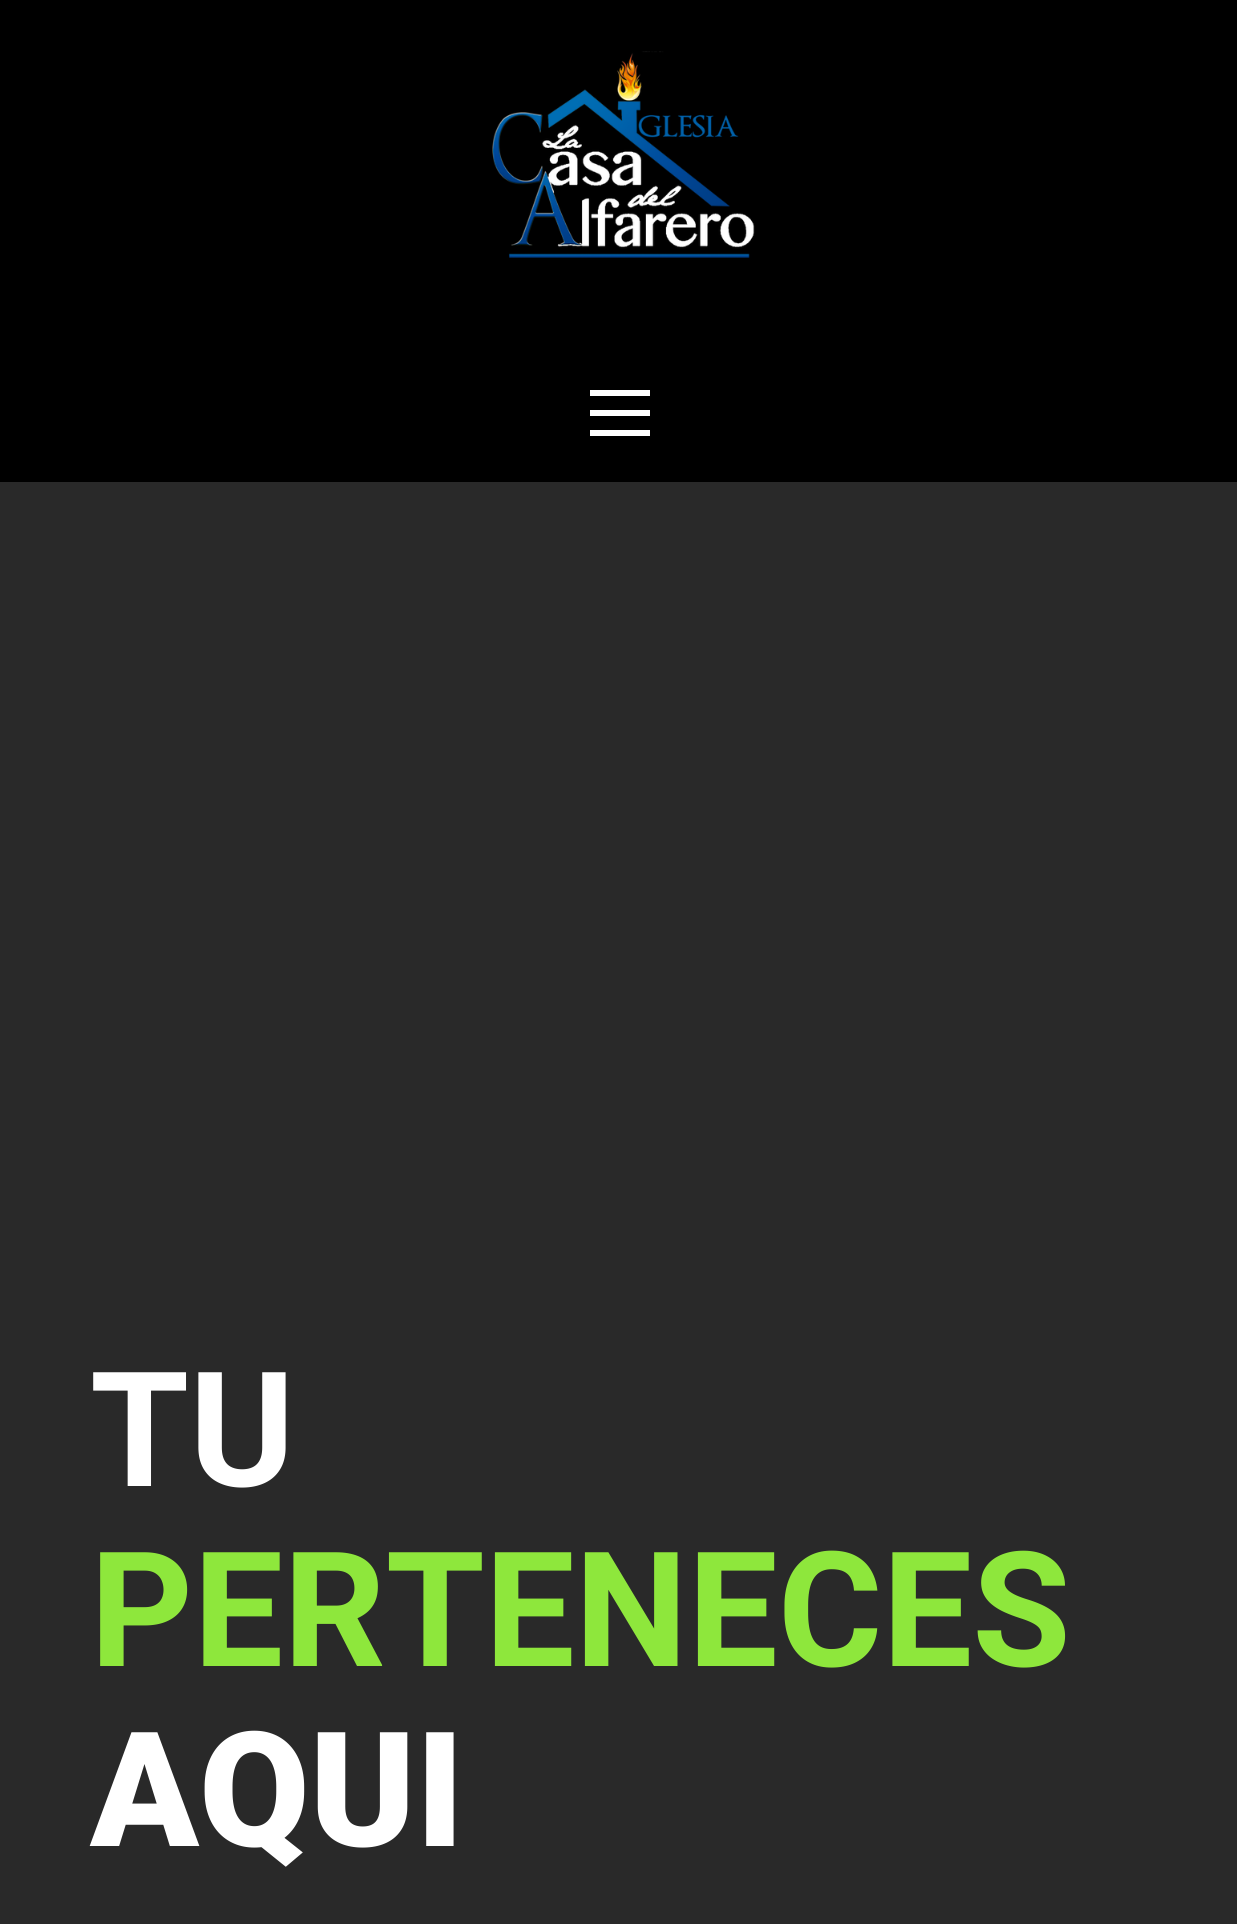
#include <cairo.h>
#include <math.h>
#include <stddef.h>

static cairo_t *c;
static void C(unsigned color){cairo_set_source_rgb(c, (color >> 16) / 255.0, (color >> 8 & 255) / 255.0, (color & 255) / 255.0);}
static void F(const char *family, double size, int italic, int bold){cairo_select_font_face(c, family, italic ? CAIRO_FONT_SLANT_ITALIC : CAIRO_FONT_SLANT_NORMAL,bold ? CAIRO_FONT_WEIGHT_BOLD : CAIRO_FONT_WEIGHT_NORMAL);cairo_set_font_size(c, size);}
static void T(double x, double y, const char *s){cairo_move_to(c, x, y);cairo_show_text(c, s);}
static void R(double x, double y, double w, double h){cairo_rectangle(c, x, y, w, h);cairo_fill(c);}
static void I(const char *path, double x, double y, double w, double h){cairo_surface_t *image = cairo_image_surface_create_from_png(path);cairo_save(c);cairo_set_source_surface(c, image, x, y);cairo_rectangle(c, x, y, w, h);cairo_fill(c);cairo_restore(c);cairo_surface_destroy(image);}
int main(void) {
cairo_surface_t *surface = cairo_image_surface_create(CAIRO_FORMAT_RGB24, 1237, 1924);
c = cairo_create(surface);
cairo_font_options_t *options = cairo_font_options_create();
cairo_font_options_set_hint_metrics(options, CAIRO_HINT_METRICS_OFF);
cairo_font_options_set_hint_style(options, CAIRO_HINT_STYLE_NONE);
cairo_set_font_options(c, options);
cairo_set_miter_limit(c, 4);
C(0x292929);
cairo_paint(c);
C(0x000000);
R(0,0,1237,482);
I("1.png",492,51,263,207);
C(0xffffff);
R(590,390,60,6);
R(590,410,60,6);
R(590,430,60,6);
F("Roboto",160,0,1);
T(90,1486,"TU");
C(0x8ee73c);
T(90,1666,"PERTENECES");
F("Roboto Black",160,0,0);
C(0xffffff);
T(90,1846,"AQUI");
cairo_surface_write_to_png(surface, "o.png");
cairo_font_options_destroy(options);
cairo_destroy(c);
cairo_surface_destroy(surface);
return 0;
}
